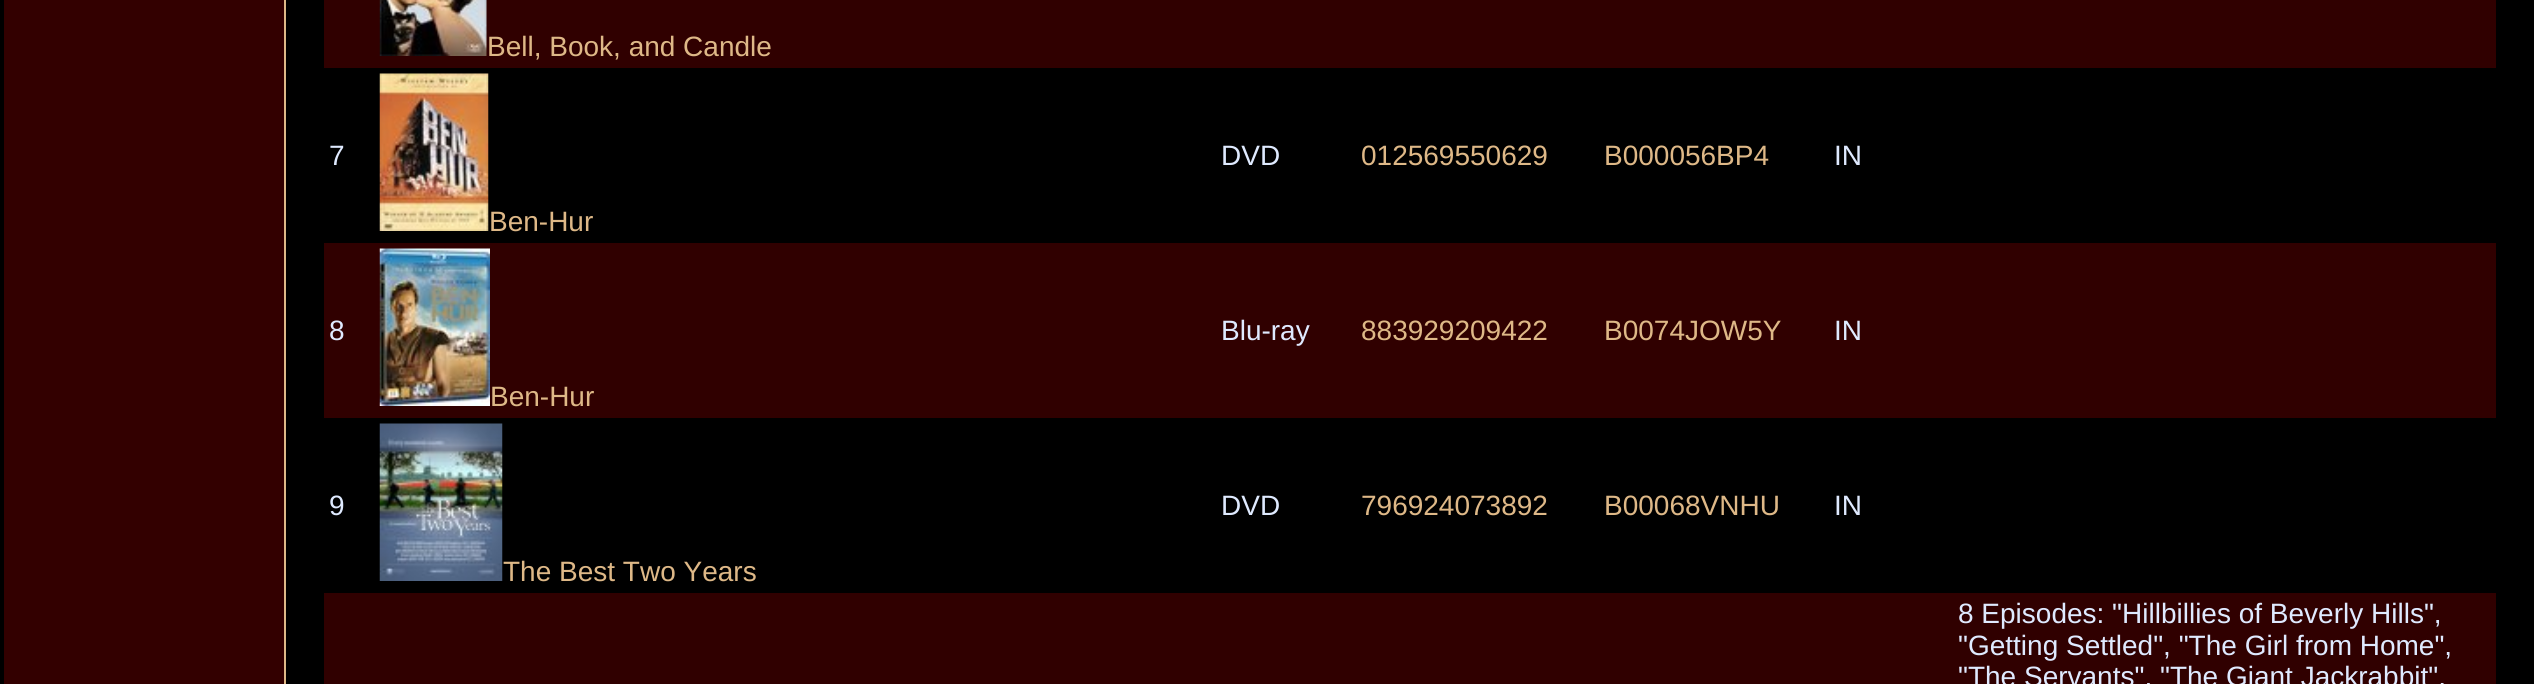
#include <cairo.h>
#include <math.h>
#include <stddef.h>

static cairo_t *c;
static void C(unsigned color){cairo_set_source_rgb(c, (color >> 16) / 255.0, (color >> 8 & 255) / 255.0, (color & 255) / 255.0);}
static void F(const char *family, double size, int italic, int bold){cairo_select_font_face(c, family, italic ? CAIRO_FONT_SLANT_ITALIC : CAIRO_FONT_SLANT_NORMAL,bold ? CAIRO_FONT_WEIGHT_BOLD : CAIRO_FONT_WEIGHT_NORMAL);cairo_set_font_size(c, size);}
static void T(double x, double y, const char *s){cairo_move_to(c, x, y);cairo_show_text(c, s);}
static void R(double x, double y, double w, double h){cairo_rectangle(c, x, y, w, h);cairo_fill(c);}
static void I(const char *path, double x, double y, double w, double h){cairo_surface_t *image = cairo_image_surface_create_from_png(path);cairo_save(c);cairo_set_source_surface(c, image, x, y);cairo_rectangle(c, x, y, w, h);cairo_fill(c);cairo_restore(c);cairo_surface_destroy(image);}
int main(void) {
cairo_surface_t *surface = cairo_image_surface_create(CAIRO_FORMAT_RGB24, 2534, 684);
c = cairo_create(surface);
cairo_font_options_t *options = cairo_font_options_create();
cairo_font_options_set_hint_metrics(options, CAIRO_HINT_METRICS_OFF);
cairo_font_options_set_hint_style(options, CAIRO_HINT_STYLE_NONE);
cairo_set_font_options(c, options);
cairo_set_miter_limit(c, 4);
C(0x000000);
cairo_paint(c);
C(0x330000);
R(4,0,280,684);
C(0xdeb887);
R(284,0,2,684);
C(0x300000);
R(324,0,2172,68);
I("1.png",379,0,108,56);
F("Liberation Sans",28,0,0);
C(0xdeb887);
T(487,56,"Bell, Book, and Candle");
C(0xdfeaff);
T(329,165,"7");
T(1221,165,"DVD");
C(0xdeb887);
T(1361,165,"012569550629");
T(1604,165,"B000056BP4");
C(0xdfeaff);
T(1834,165,"IN");
I("2.png",379,73,110,158);
C(0xdeb887);
T(489,231,"Ben-Hur");
C(0x300000);
R(324,243,2172,175);
C(0xdfeaff);
T(329,340,"8");
T(1221,340,"Blu-ray");
C(0xdeb887);
T(1361,340,"883929209422");
T(1604,340,"B0074JOW5Y");
C(0xdfeaff);
T(1834,340,"IN");
I("3.png",379,248,111,158);
C(0xdeb887);
T(490,406,"Ben-Hur");
C(0xdfeaff);
T(329,515,"9");
T(1221,515,"DVD");
C(0xdeb887);
T(1361,515,"796924073892");
T(1604,515,"B00068VNHU");
C(0xdfeaff);
T(1834,515,"IN");
I("4.png",379,423,124,158);
C(0xdeb887);
T(503,581,"The Best Two Years");
C(0x300000);
R(324,593,2172,91);
C(0xdfeaff);
T(1958,623,"8 Episodes: \"Hillbillies of Beverly Hills\",");
T(1958,655,"\"Getting Settled\", \"The Girl from Home\",");
T(1958,686,"\"The Servants\", \"The Giant Jackrabbit\",");
cairo_surface_write_to_png(surface, "o.png");
cairo_font_options_destroy(options);
cairo_destroy(c);
cairo_surface_destroy(surface);
return 0;
}
